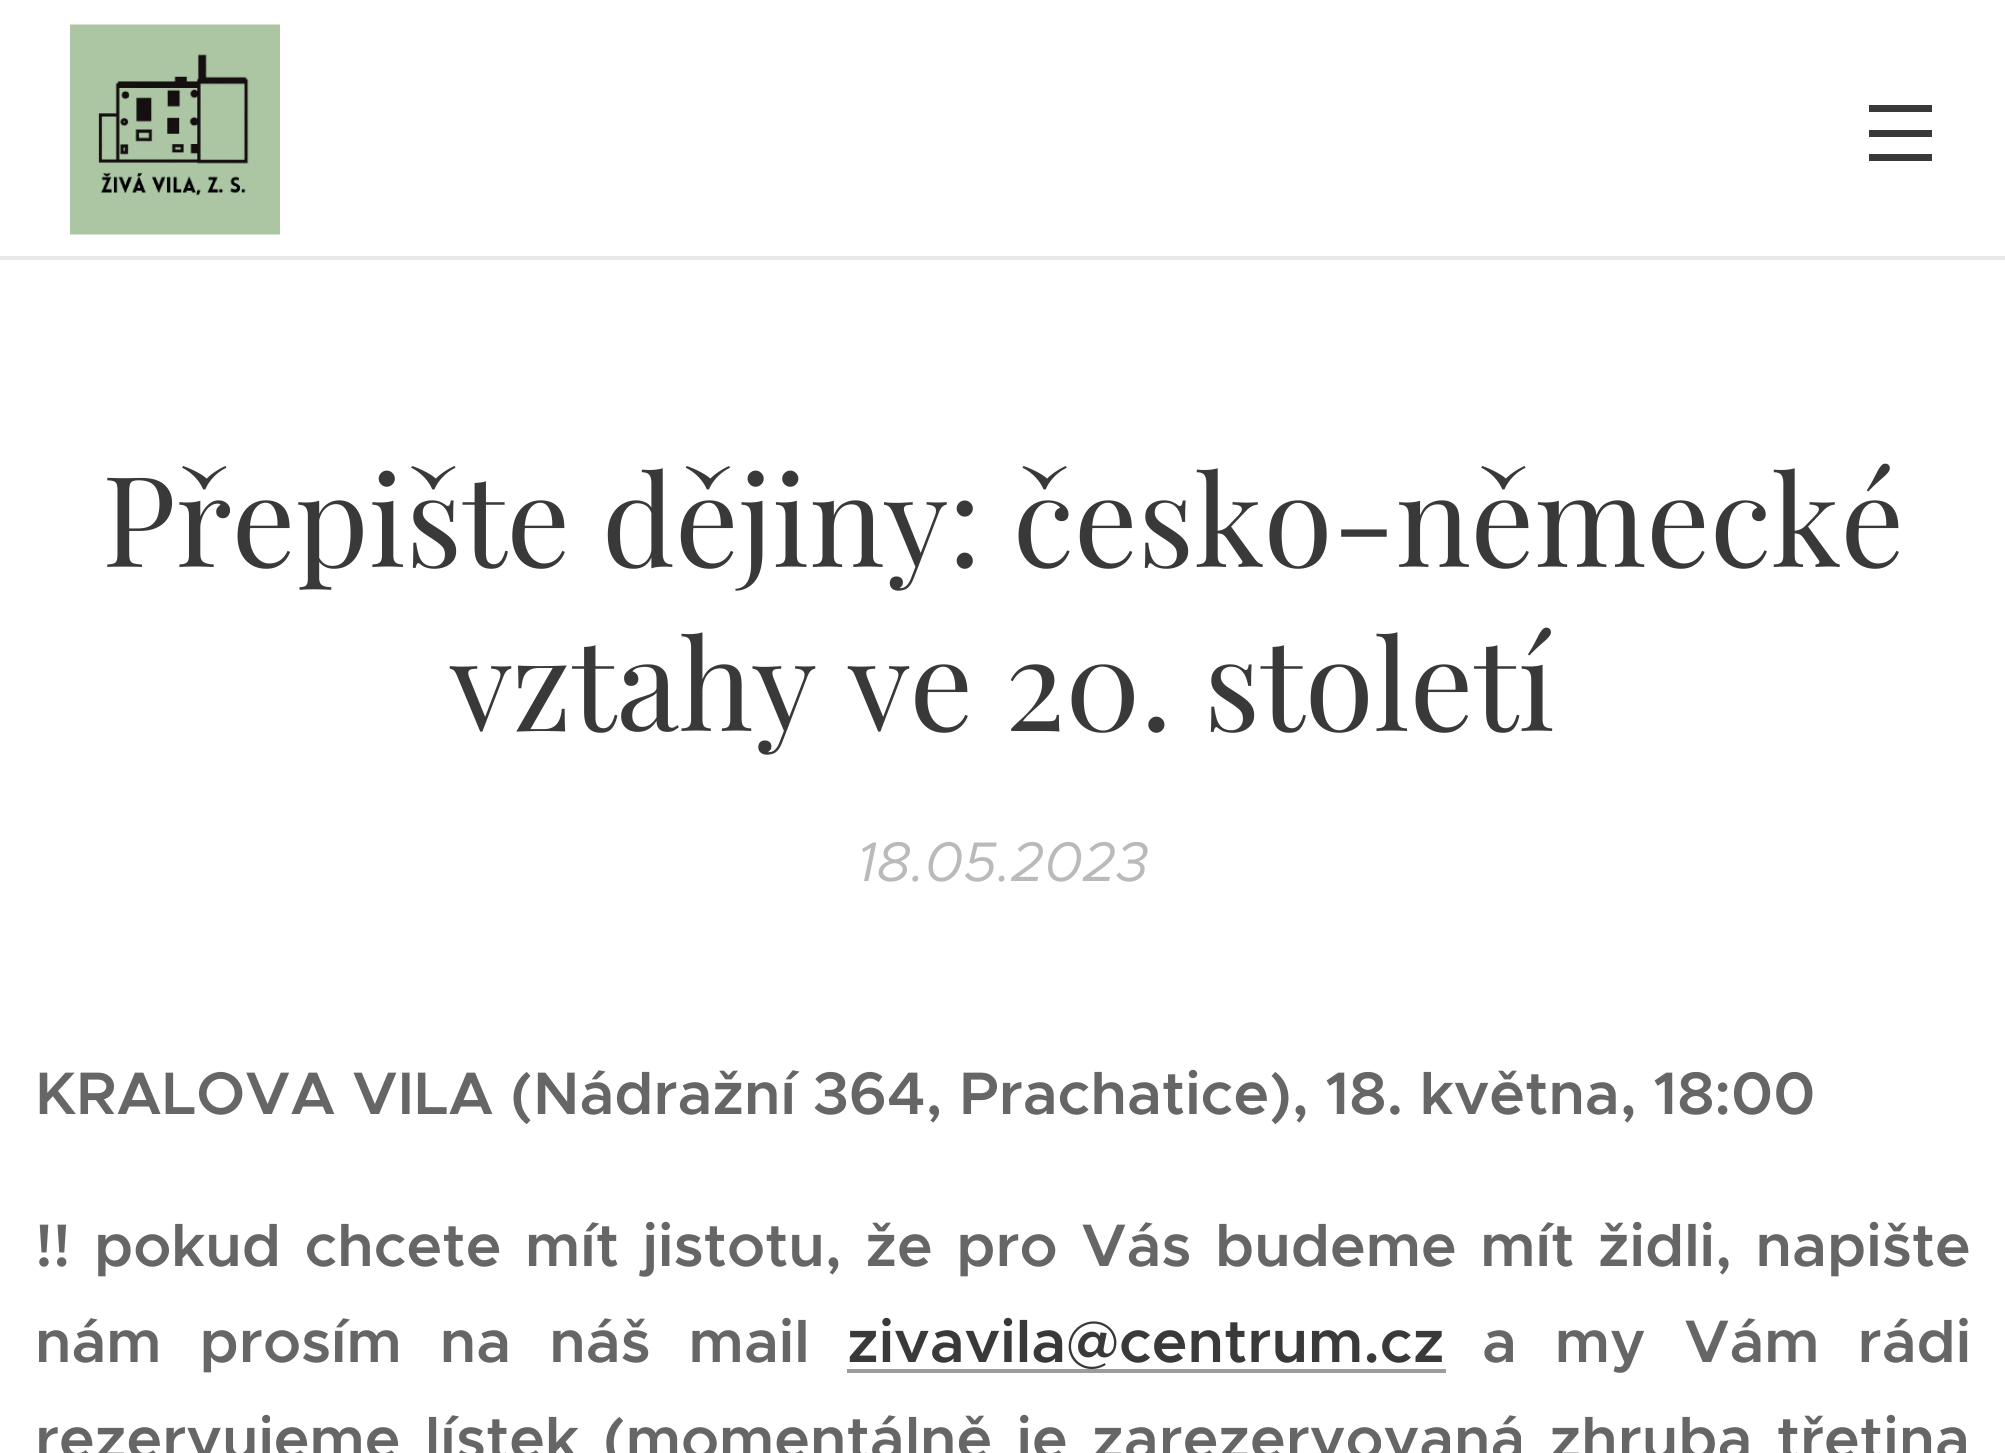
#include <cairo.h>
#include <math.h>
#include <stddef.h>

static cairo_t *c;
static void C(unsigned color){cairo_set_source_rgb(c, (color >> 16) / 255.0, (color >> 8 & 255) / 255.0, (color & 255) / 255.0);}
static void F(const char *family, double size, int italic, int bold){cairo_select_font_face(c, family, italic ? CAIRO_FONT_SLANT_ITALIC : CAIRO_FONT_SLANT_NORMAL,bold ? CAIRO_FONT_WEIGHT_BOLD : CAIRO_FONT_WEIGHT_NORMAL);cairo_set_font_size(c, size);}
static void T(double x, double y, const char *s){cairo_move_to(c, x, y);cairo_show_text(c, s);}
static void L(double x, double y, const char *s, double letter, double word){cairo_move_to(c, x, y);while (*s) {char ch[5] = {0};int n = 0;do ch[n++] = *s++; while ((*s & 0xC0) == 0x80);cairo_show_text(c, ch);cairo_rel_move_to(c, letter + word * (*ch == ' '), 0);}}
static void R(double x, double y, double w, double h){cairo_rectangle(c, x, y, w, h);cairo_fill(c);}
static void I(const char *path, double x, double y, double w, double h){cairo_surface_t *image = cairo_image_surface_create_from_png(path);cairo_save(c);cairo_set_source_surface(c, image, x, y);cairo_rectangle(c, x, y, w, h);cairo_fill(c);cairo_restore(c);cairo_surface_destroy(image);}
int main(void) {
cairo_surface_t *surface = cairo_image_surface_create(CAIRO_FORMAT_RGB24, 2005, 1453);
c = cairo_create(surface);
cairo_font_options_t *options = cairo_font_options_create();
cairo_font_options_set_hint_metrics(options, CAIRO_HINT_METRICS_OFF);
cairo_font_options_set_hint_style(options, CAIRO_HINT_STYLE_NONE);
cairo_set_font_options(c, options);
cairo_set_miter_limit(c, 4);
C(0xffffff);
cairo_paint(c);
I("1.png",70,24,210,211);
C(0x393939);
R(1869,130,63,7);
R(1869,105,63,7);
R(1869,154,63,7);
C(0xe8e8e8);
R(0,256,2005,4);
F("Playfair Display",126,0,0);
C(0x393939);
T(102,567,"Přepište dějiny: česko-německé");
T(450,731,"vztahy ve 20. století");
F("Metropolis",56,1,0);
C(0xbababa);
T(857,881,"18.05.2023");
F("Metropolis SemiBold",60.2,0,0);
C(0x666666);
L(35,1114,"KRALOVA VILA (Nádražní 364, Prachatice), 18. května, 18:00",0,-.25);
L(35,1266,"!! pokud chcete mít jistotu, že pro Vás budeme mít židli, napište",0,6.5);
L(35,1362,"nám prosím na náš mail",0,21);
C(0x393939);
T(847,1362,"zivavila@centrum.cz");
C(0x9c9c9c);
R(847,1369,599,4);
C(0x666666);
L(1482,1362,"a my Vám rádi",0,21);
L(35,1459,"rezervujeme lístek (momentálně je zarezervovaná zhruba třetina",0,7.25);
cairo_surface_write_to_png(surface, "o.png");
cairo_font_options_destroy(options);
cairo_destroy(c);
cairo_surface_destroy(surface);
return 0;
}
